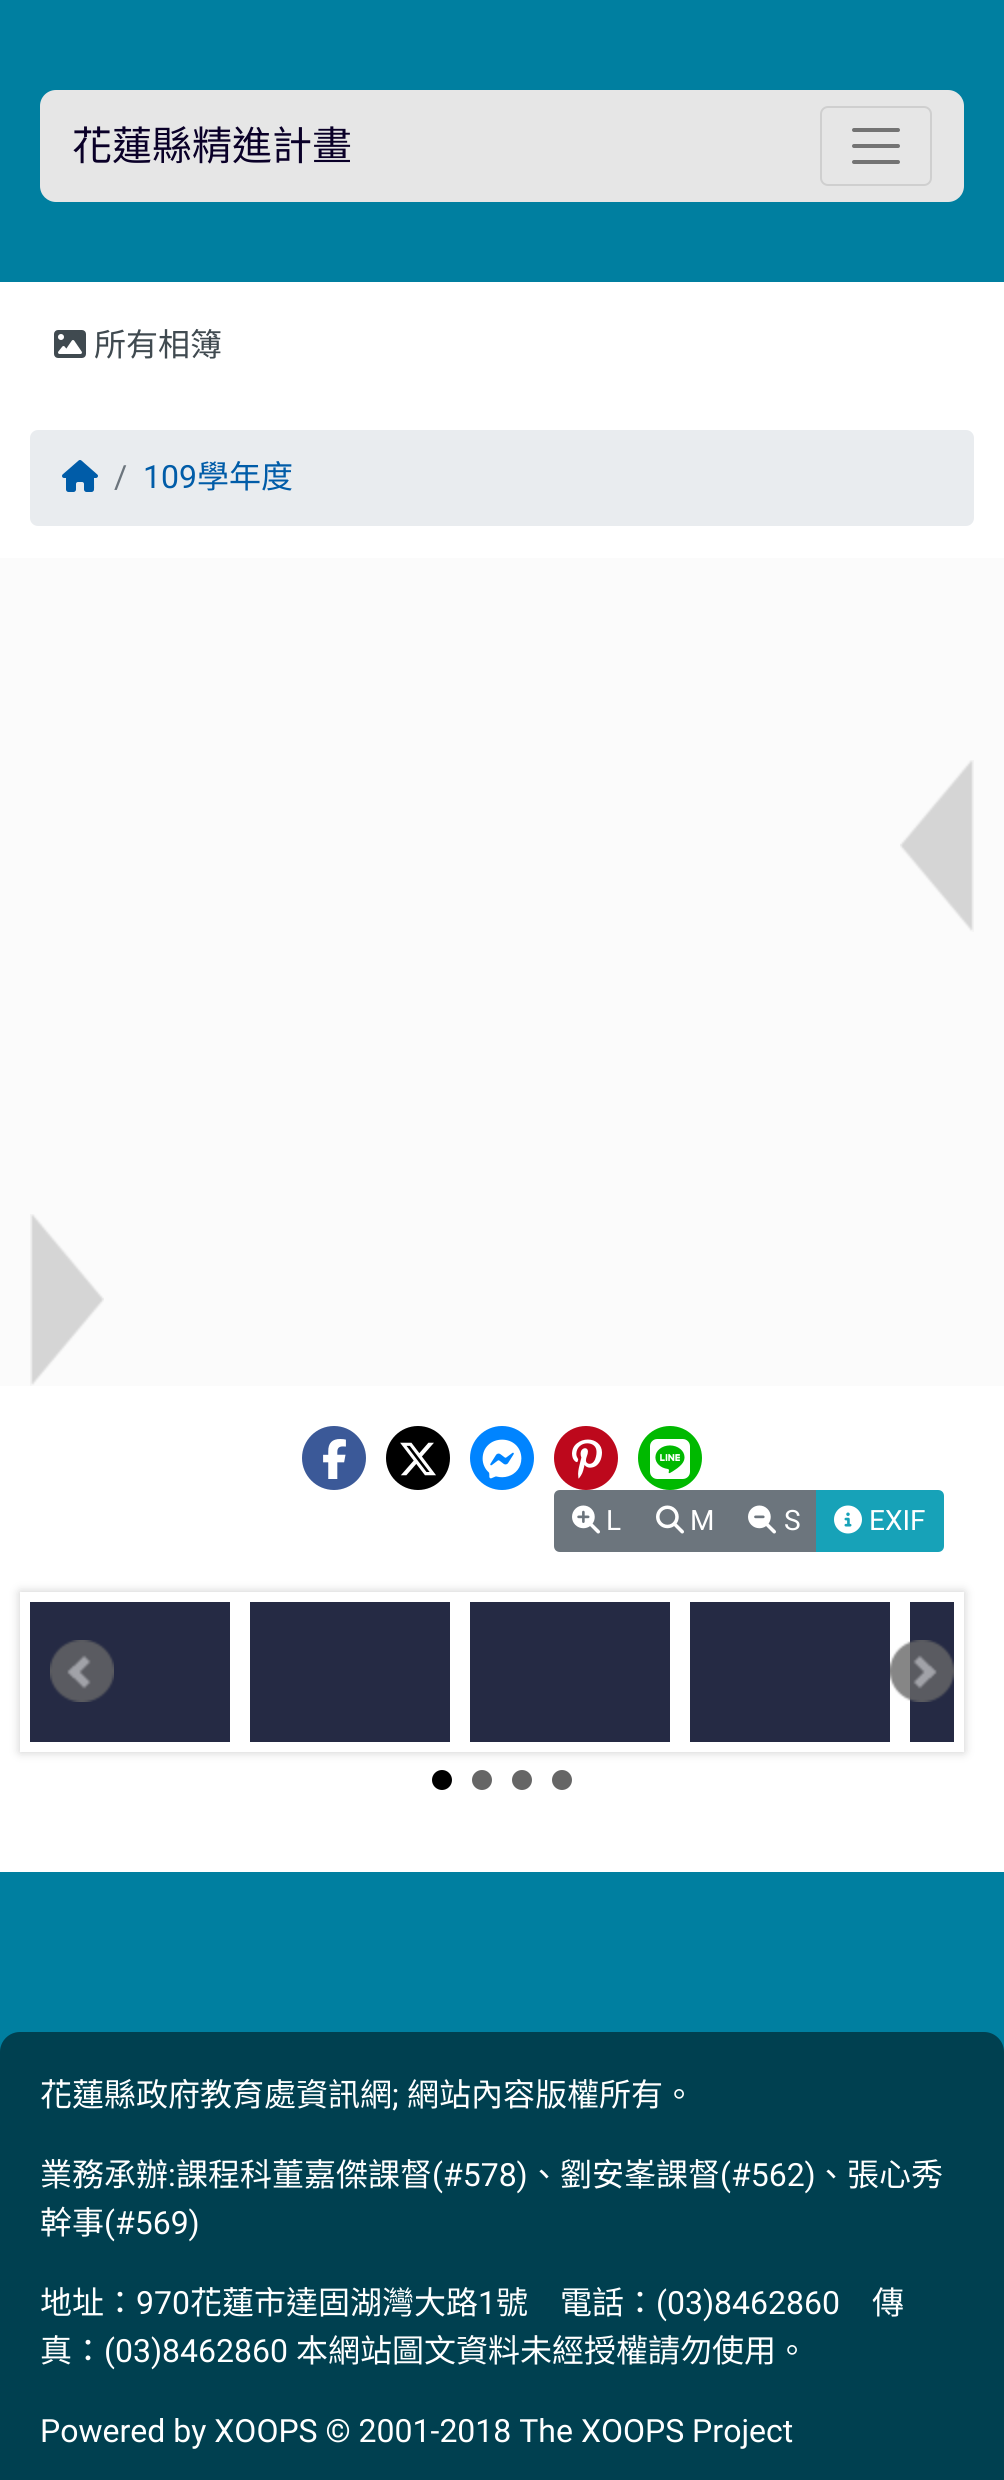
#include <cairo.h>
#include <math.h>
#include <stddef.h>

static cairo_t *c;
static void C(unsigned color){cairo_set_source_rgb(c, (color >> 16) / 255.0, (color >> 8 & 255) / 255.0, (color & 255) / 255.0);}
static void F(const char *family, double size, int italic, int bold){cairo_select_font_face(c, family, italic ? CAIRO_FONT_SLANT_ITALIC : CAIRO_FONT_SLANT_NORMAL,bold ? CAIRO_FONT_WEIGHT_BOLD : CAIRO_FONT_WEIGHT_NORMAL);cairo_set_font_size(c, size);}
static void T(double x, double y, const char *s){cairo_move_to(c, x, y);cairo_show_text(c, s);}
static void R(double x, double y, double w, double h){cairo_rectangle(c, x, y, w, h);cairo_fill(c);}
static void Q(double x, double y, double w, double h, double r){cairo_new_sub_path(c);cairo_arc(c, x + w - r, y + h - r, r, 0, M_PI / 2);cairo_arc(c, x + r, y + h - r, r, M_PI / 2, M_PI);cairo_arc(c, x + r, y + r, r, M_PI, 1.5 * M_PI);cairo_arc(c, x + w - r, y + r, r, 1.5 * M_PI, 2 * M_PI);cairo_close_path(c);}
static void S(double x, double y, double w, double h, double r, double blur, double alpha){cairo_push_group_with_content(c, CAIRO_CONTENT_ALPHA);cairo_set_operator(c, CAIRO_OPERATOR_SOURCE);for (int i = 15; i >= -15 && fmin(w, h) + blur * i / 3 > 0; i -= 2) {double e = blur * i / 6;cairo_set_source_rgba(c, 0, 0, 0, alpha * erfc((i - 1) / 8.5) / 2);Q(x - e, y - e, w + 2 * e, h + 2 * e, fmax(0, fmin(r + e + blur * .6, fmin(w, h) / 2 + e)));cairo_fill(c);}cairo_pattern_t *soft = cairo_pop_group(c);cairo_mask(c, soft);cairo_pattern_destroy(soft);}
static void I(const char *path, double x, double y, double w, double h){cairo_surface_t *image = cairo_image_surface_create_from_png(path);cairo_save(c);cairo_set_source_surface(c, image, x, y);cairo_rectangle(c, x, y, w, h);cairo_fill(c);cairo_restore(c);cairo_surface_destroy(image);}
int main(void) {
cairo_surface_t *surface = cairo_image_surface_create(CAIRO_FORMAT_RGB24, 1004, 2480);
c = cairo_create(surface);
cairo_font_options_t *options = cairo_font_options_create();
cairo_font_options_set_hint_metrics(options, CAIRO_HINT_METRICS_OFF);
cairo_font_options_set_hint_style(options, CAIRO_HINT_STYLE_NONE);
cairo_set_font_options(c, options);
cairo_set_miter_limit(c, 4);
C(0x007fa0);
cairo_paint(c);
C(0xe6e6e6);
Q(40,90,924,112,16);
cairo_fill(c);
F("Noto Sans CJK TC",40,0,0);
C(0x0a0028);
T(72,160,"花蓮縣精進計畫");
Q(821,107,110,78,7);
C(0xcfcfcf);
cairo_stroke(c);
cairo_new_path(c);
cairo_move_to(c,854,130);
cairo_line_to(c,898,130);
cairo_move_to(c,854,146);
cairo_line_to(c,898,146);
cairo_move_to(c,854,162);
cairo_line_to(c,898,162);
C(0x737373);
cairo_set_line_width(c,4);
cairo_set_line_cap(c,CAIRO_LINE_CAP_ROUND);
cairo_stroke(c);
C(0xffffff);
R(0,282,1004,1590);
I("1.png",54,330,32,28);
F("Noto Sans CJK TC",32,0,0);
C(0x404a50);
T(94,356,"所有相簿");
C(0xe9ecef);
Q(30,430,944,96,8);
cairo_fill(c);
I("2.png",62,460,36,32);
F("Roboto",32,0,0);
C(0x6c757d);
T(114,488,"/");
C(0x005ca8);
T(143,488,"109");
F("Noto Sans CJK TC",32,0,0);
T(197,488,"學年度");
C(0xfbfbfb);
R(0,558,1004,828);
I("3.png",900,760,74,172);
I("4.png",30,1214,74,172);
C(0x3b5998);
cairo_arc(c,334,1458,32,0,2 * M_PI);
cairo_fill(c);
I("5.png",323,1439,23,40);
C(0x000000);
cairo_arc(c,418,1458,32,0,2 * M_PI);
cairo_fill(c);
I("6.png",400,1442,36,34);
C(0x0084ff);
cairo_arc(c,502,1458,32,0,2 * M_PI);
cairo_fill(c);
I("7.png",482,1439,40,40);
C(0xbd081c);
cairo_arc(c,586,1458,32,0,2 * M_PI);
cairo_fill(c);
I("8.png",572,1439,30,40);
C(0x00b900);
cairo_arc(c,670,1458,32,0,2 * M_PI);
cairo_fill(c);
I("9.png",650,1439,40,40);
C(0x6c757d);
cairo_new_path(c);
cairo_move_to(c,560,1491);
cairo_line_to(c,639,1491);
cairo_line_to(c,639,1551);
cairo_line_to(c,560,1551);
cairo_curve_to(c,557,1551,555,1549,555,1546);
cairo_line_to(c,555,1496);
cairo_curve_to(c,555,1493,557,1491,560,1491);
cairo_close_path(c);
cairo_fill_preserve(c);
cairo_set_line_width(c,2);
cairo_set_line_cap(c,CAIRO_LINE_CAP_BUTT);
cairo_stroke(c);
I("10.png",572,1505,28,29);
F("Roboto",28,0,0);
C(0xffffff);
T(606,1530,"L");
C(0x6c757d);
R(640,1490,176,62);
I("11.png",656,1505,28,29);
C(0xffffff);
T(690,1530,"M");
I("12.png",748,1505,28,29);
T(784,1530,"S");
C(0x17a2b8);
cairo_new_path(c);
cairo_move_to(c,817,1491);
cairo_line_to(c,938,1491);
cairo_curve_to(c,941,1491,943,1493,943,1496);
cairo_line_to(c,943,1546);
cairo_curve_to(c,943,1549,941,1551,938,1551);
cairo_line_to(c,817,1551);
cairo_close_path(c);
cairo_fill_preserve(c);
cairo_stroke(c);
I("13.png",834,1505,28,29);
C(0xffffff);
T(869,1530,"EXIF");
cairo_save(c);
cairo_set_fill_rule(c,CAIRO_FILL_RULE_EVEN_ODD);
cairo_new_path(c);
cairo_move_to(c,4,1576);
cairo_line_to(c,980,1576);
cairo_line_to(c,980,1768);
cairo_line_to(c,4,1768);
cairo_close_path(c);
cairo_move_to(c,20,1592);
cairo_line_to(c,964,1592);
cairo_line_to(c,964,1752);
cairo_line_to(c,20,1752);
cairo_close_path(c);
cairo_clip(c);
C(0xcccccc);
S(20,1592,944,160,0,5,1);
cairo_restore(c);
C(0x252a44);
R(30,1602,200,140);
R(250,1602,200,140);
R(470,1602,200,140);
R(690,1602,200,140);
R(910,1602,44,140);
I("14.png",50,1640,64,62);
I("15.png",890,1640,64,62);
C(0x000000);
cairo_arc(c,442,1780,10,0,2 * M_PI);
cairo_fill(c);
C(0x666666);
cairo_arc(c,482,1780,10,0,2 * M_PI);
cairo_fill(c);
cairo_arc(c,522,1780,10,0,2 * M_PI);
cairo_fill(c);
cairo_arc(c,562,1780,10,0,2 * M_PI);
cairo_fill(c);
C(0x004050);
Q(0,2032,1004,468,20);
cairo_fill(c);
F("Noto Sans CJK TC",32,0,0);
C(0xffffff);
T(40,2106,"花蓮縣政府教育處資訊網");
F("Roboto",32,0,0);
T(392,2106,";");
F("Noto Sans CJK TC",32,0,0);
T(407,2106,"網站內容版權所有。");
T(40,2186,"業務承辦");
F("Roboto",32,0,0);
T(168,2186,":");
F("Noto Sans CJK TC",32,0,0);
T(176,2186,"課程科董嘉傑課督");
F("Roboto",32,0,0);
T(432,2186,"(#578)");
F("Noto Sans CJK TC",32,0,0);
T(528,2186,"、劉安峯課督");
F("Roboto",32,0,0);
T(720,2186,"(#562)");
F("Noto Sans CJK TC",32,0,0);
T(815,2186,"、張心秀");
T(40,2234,"幹事");
F("Roboto",32,0,0);
T(104,2234,"(#569)");
F("Noto Sans CJK TC",32,0,0);
T(40,2314,"地址：");
F("Roboto",32,0,0);
T(136,2314,"970");
F("Noto Sans CJK TC",32,0,0);
T(190,2314,"花蓮市達固湖灣大路");
F("Roboto",32,0,0);
T(478,2314,"1");
F("Noto Sans CJK TC",32,0,0);
T(496,2314,"號　電話：");
F("Roboto",32,0,0);
T(656,2314,"(03)8462860");
F("Noto Sans CJK TC",32,0,0);
T(872,2314,"傳");
T(40,2362,"真：");
F("Roboto",32,0,0);
T(104,2362,"(03)8462860");
F("Noto Sans CJK TC",32,0,0);
T(296,2362,"本網站圖文資料未經授權請勿使用。");
F("Roboto",32,0,0);
T(40,2442,"Powered by XOOPS © 2001-2018 The XOOPS Project");
cairo_surface_write_to_png(surface, "o.png");
cairo_font_options_destroy(options);
cairo_destroy(c);
cairo_surface_destroy(surface);
return 0;
}
